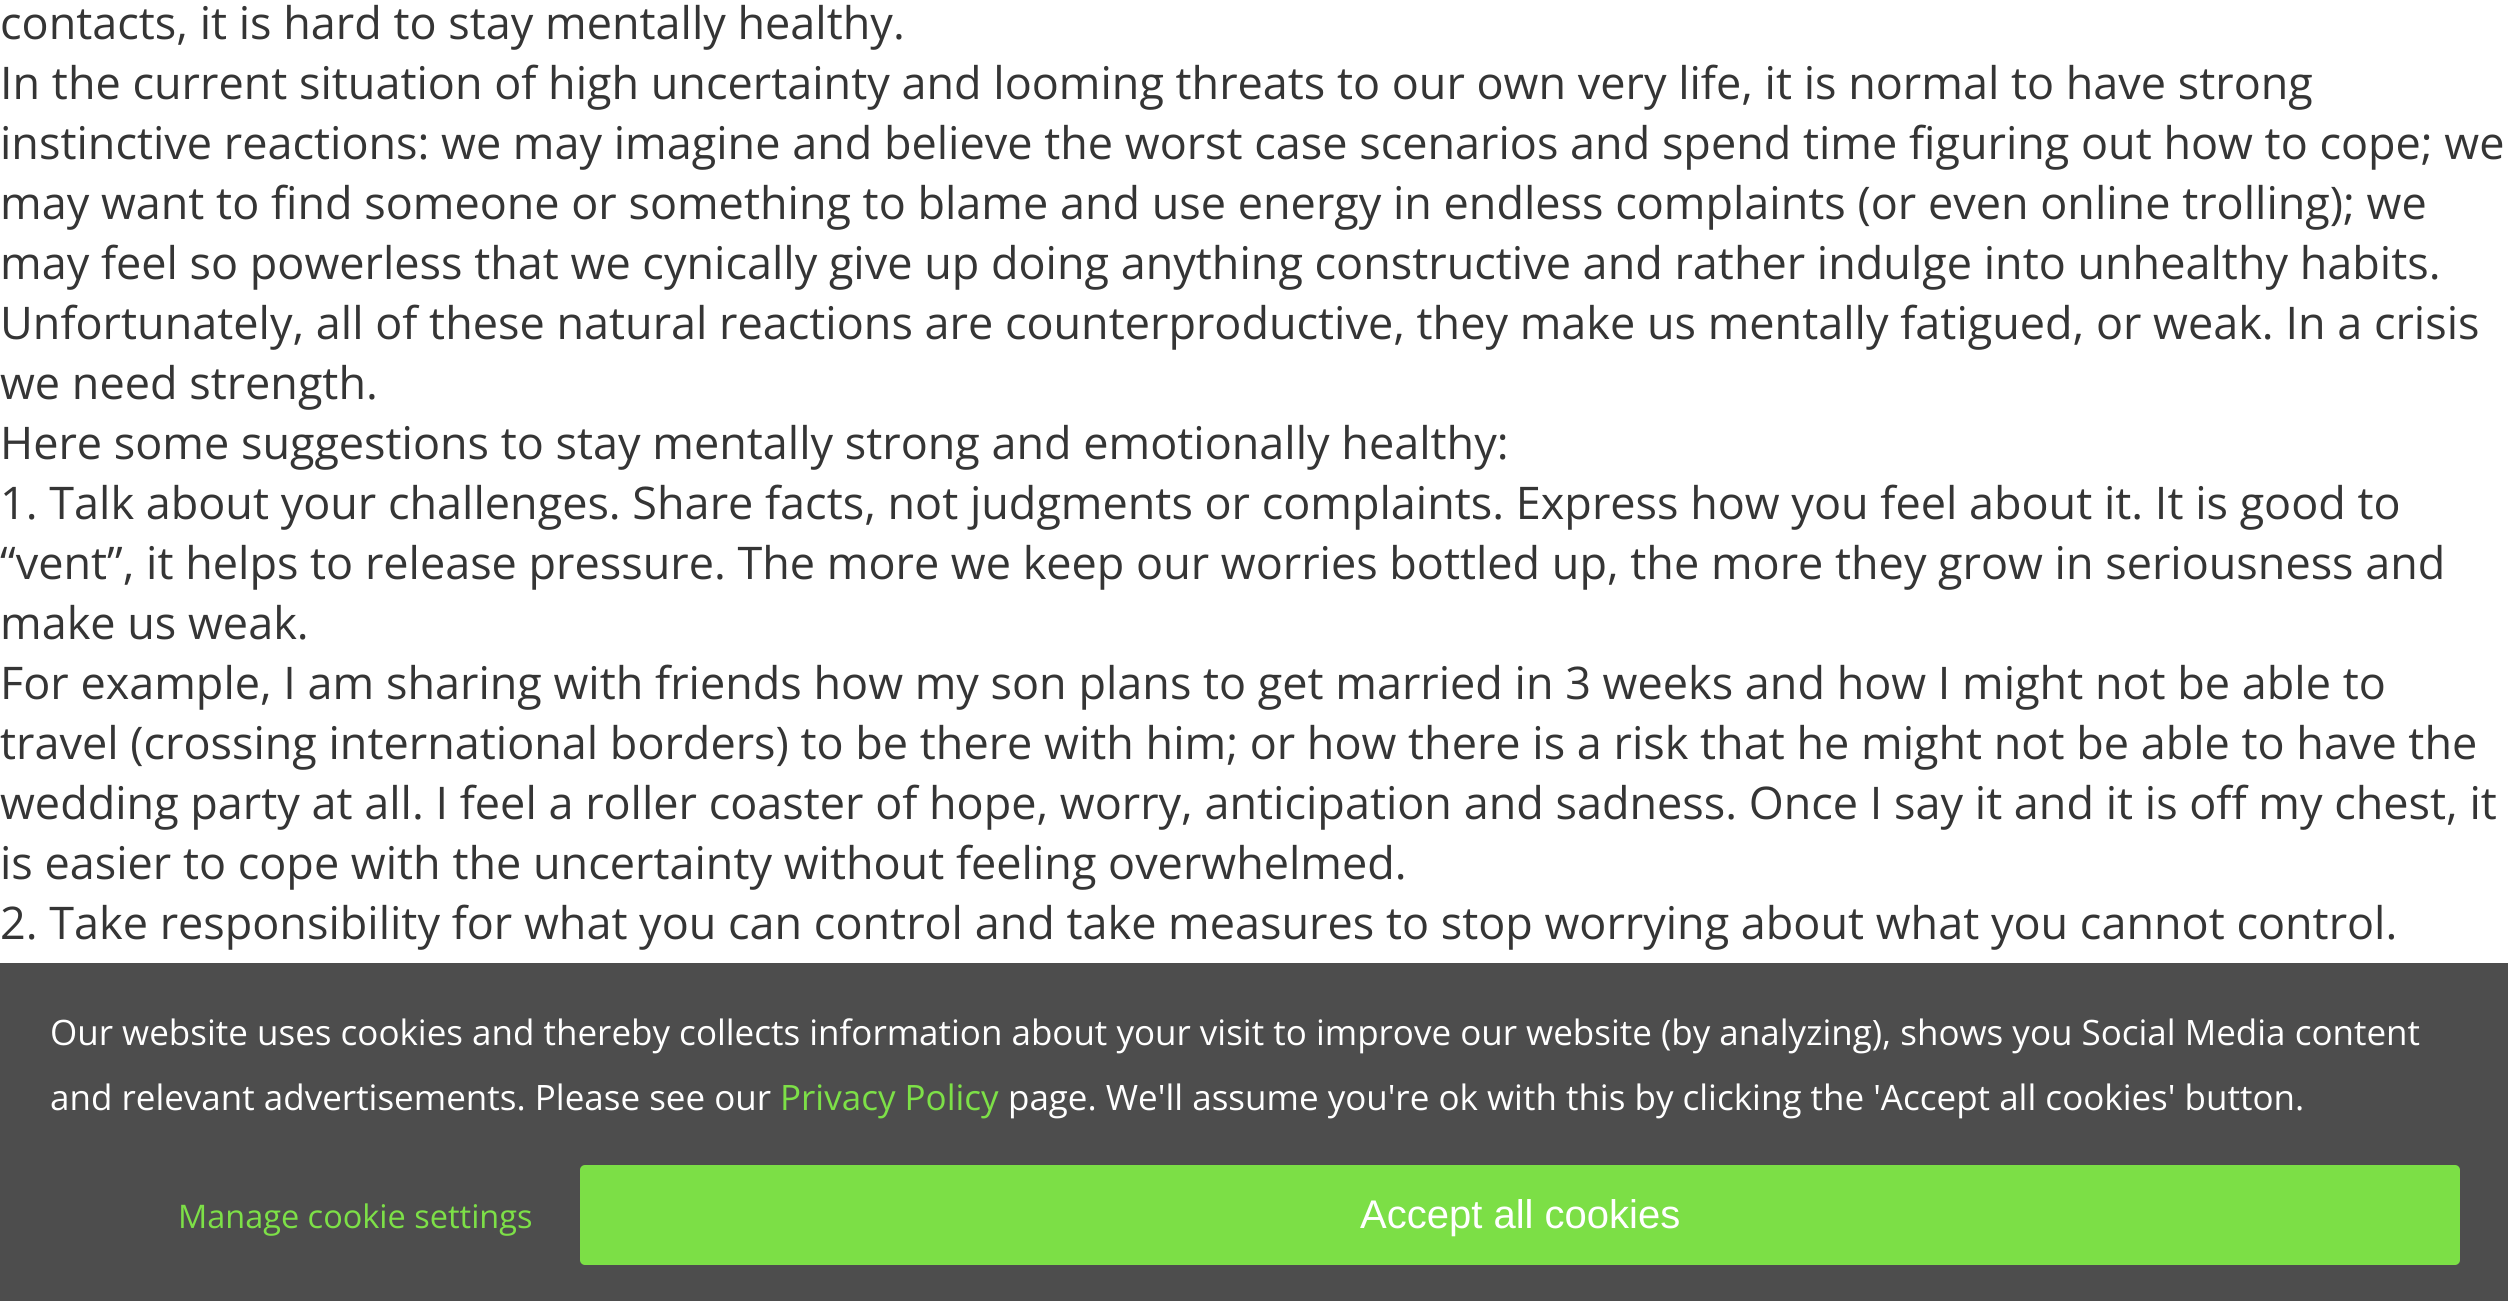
#include <cairo.h>
#include <math.h>
#include <stddef.h>

static cairo_t *c;
static void C(unsigned color){cairo_set_source_rgb(c, (color >> 16) / 255.0, (color >> 8 & 255) / 255.0, (color & 255) / 255.0);}
static void F(const char *family, double size, int italic, int bold){cairo_select_font_face(c, family, italic ? CAIRO_FONT_SLANT_ITALIC : CAIRO_FONT_SLANT_NORMAL,bold ? CAIRO_FONT_WEIGHT_BOLD : CAIRO_FONT_WEIGHT_NORMAL);cairo_set_font_size(c, size);}
static void T(double x, double y, const char *s){cairo_move_to(c, x, y);cairo_show_text(c, s);}
static void R(double x, double y, double w, double h){cairo_rectangle(c, x, y, w, h);cairo_fill(c);}
static void Q(double x, double y, double w, double h, double r){cairo_new_sub_path(c);cairo_arc(c, x + w - r, y + h - r, r, 0, M_PI / 2);cairo_arc(c, x + r, y + h - r, r, M_PI / 2, M_PI);cairo_arc(c, x + r, y + r, r, M_PI, 1.5 * M_PI);cairo_arc(c, x + w - r, y + r, r, 1.5 * M_PI, 2 * M_PI);cairo_close_path(c);}
int main(void) {
cairo_surface_t *surface = cairo_image_surface_create(CAIRO_FORMAT_RGB24, 2508, 1301);
c = cairo_create(surface);
cairo_font_options_t *options = cairo_font_options_create();
cairo_font_options_set_hint_metrics(options, CAIRO_HINT_METRICS_OFF);
cairo_font_options_set_hint_style(options, CAIRO_HINT_STYLE_NONE);
cairo_set_font_options(c, options);
cairo_set_miter_limit(c, 4);
C(0xffffff);
cairo_paint(c);
C(0x4d4d4d);
R(0,963,2508,338);
F("Open Sans",45,0,0);
C(0x353535);
T(0,39,"contacts, it is hard to stay mentally healthy.");
T(0,99,"In the current situation of high uncertainty and looming threats to our own very life, it is normal to have strong");
T(0,159,"instinctive reactions: we may imagine and believe the worst case scenarios and spend time figuring out how to cope; we");
T(0,219,"may want to find someone or something to blame and use energy in endless complaints (or even online trolling); we");
T(0,279,"may feel so powerless that we cynically give up doing anything constructive and rather indulge into unhealthy habits.");
T(0,339,"Unfortunately, all of these natural reactions are counterproductive, they make us mentally fatigued, or weak. In a crisis");
T(0,399,"we need strength.");
T(0,459,"Here some suggestions to stay mentally strong and emotionally healthy:");
T(0,519,"1. Talk about your challenges. Share facts, not judgments or complaints. Express how you feel about it. It is good to");
T(0,579,"“vent”, it helps to release pressure. The more we keep our worries bottled up, the more they grow in seriousness and");
T(0,639,"make us weak.");
T(0,699,"For example, I am sharing with friends how my son plans to get married in 3 weeks and how I might not be able to");
T(0,759,"travel (crossing international borders) to be there with him; or how there is a risk that he might not be able to have the");
T(0,819,"wedding party at all. I feel a roller coaster of hope, worry, anticipation and sadness. Once I say it and it is off my chest, it");
T(0,879,"is easier to cope with the uncertainty without feeling overwhelmed.");
T(0,939,"2. Take responsibility for what you can control and take measures to stop worrying about what you cannot control.");
F("Open Sans",35,0,0);
C(0xffffff);
T(50,1045,"Our website uses cookies and thereby collects information about your visit to improve our website (by analyzing), shows you Social Media content");
T(50,1110,"and relevant advertisements. Please see our");
C(0x7de047);
T(780,1110,"Privacy Policy");
C(0xffffff);
T(1008,1110,"page. We'll assume you're ok with this by clicking the 'Accept all cookies' button.");
F("Open Sans",32.5,0,0);
C(0x7de047);
T(178,1228,"Manage cookie settings");
C(0x7cdf46);
Q(580,1165,1880,100,5);
cairo_fill(c);
F("Liberation Sans",40,0,0);
C(0xffffff);
T(1360,1228,"Accept all cookies");
cairo_surface_write_to_png(surface, "o.png");
cairo_font_options_destroy(options);
cairo_destroy(c);
cairo_surface_destroy(surface);
return 0;
}
